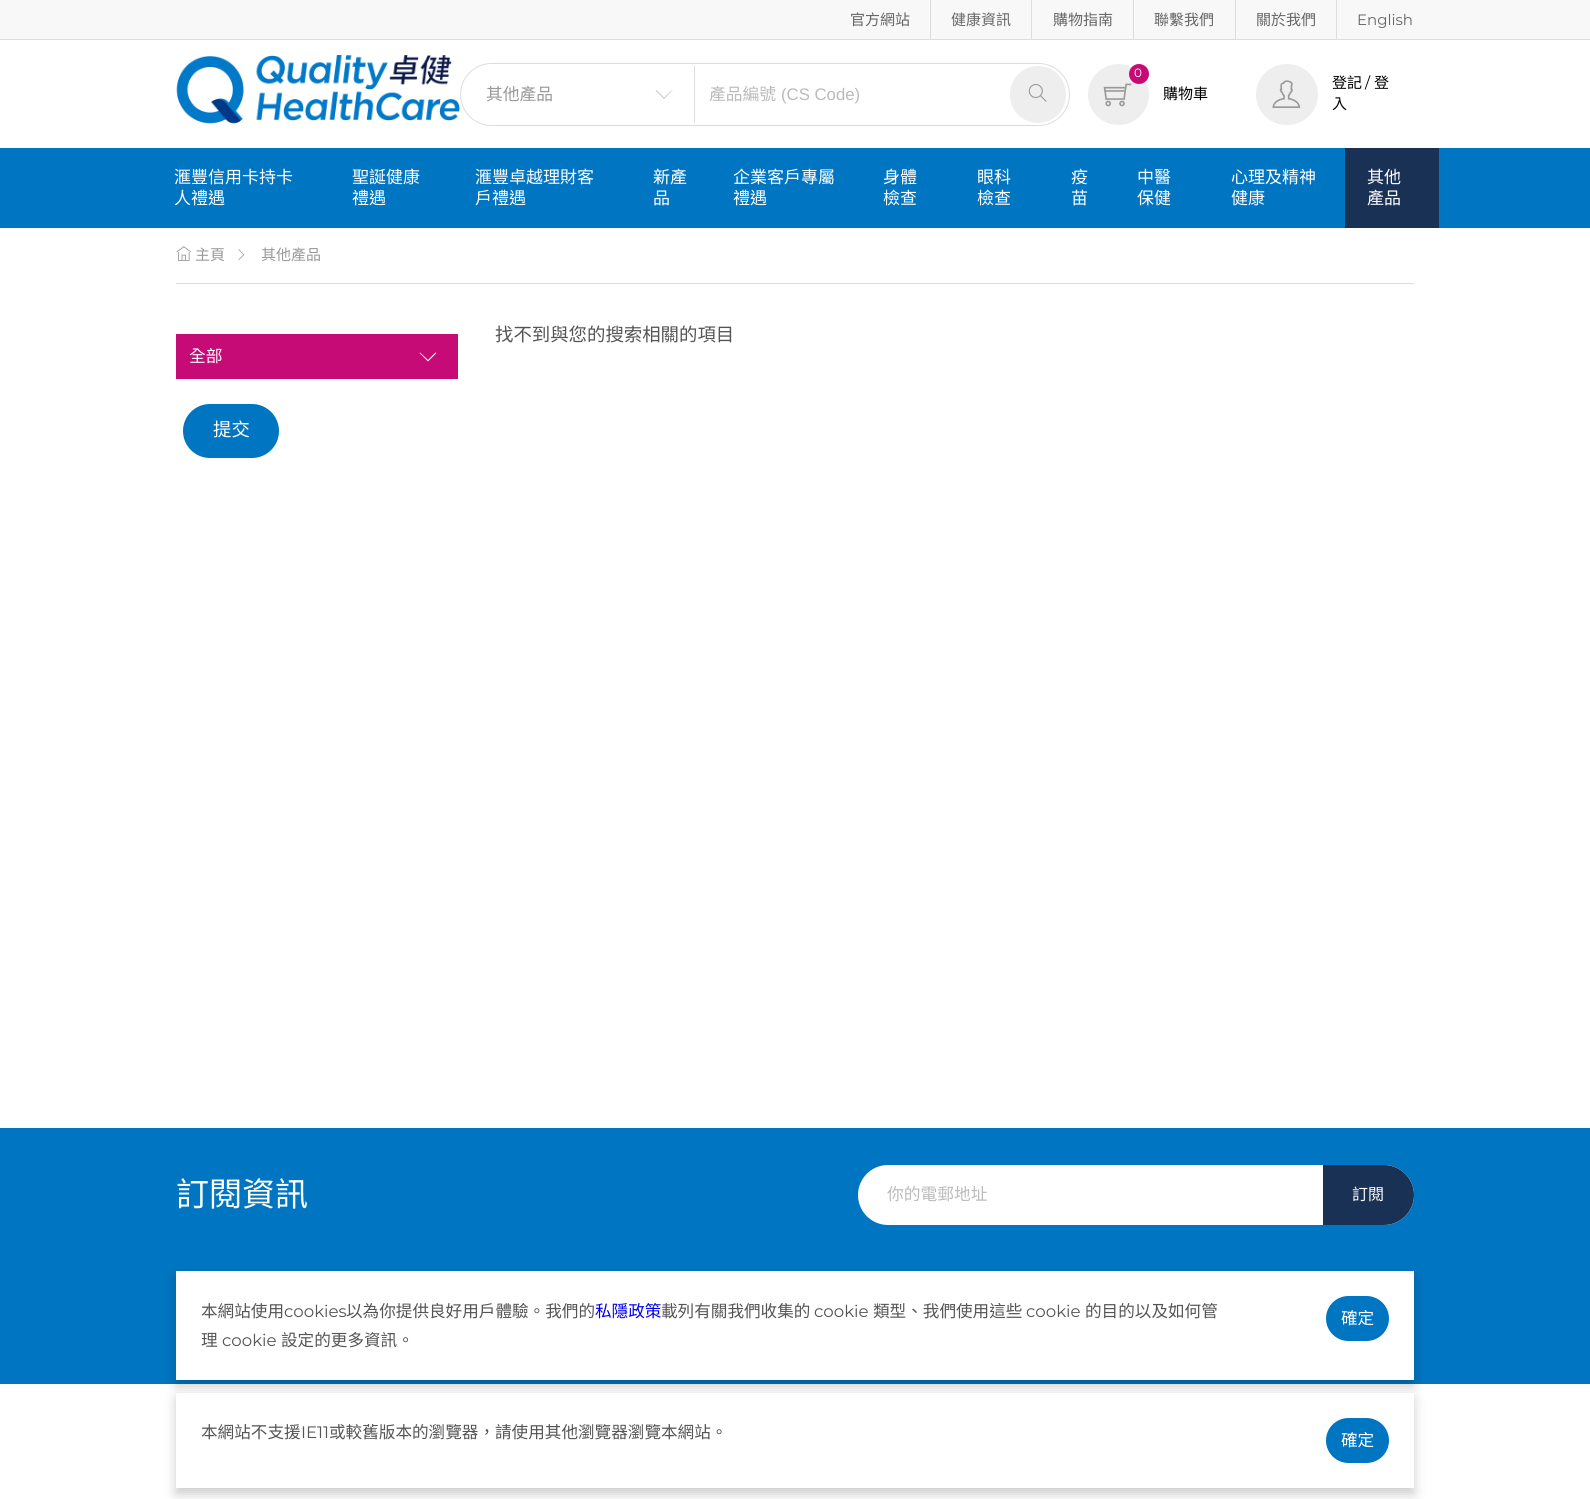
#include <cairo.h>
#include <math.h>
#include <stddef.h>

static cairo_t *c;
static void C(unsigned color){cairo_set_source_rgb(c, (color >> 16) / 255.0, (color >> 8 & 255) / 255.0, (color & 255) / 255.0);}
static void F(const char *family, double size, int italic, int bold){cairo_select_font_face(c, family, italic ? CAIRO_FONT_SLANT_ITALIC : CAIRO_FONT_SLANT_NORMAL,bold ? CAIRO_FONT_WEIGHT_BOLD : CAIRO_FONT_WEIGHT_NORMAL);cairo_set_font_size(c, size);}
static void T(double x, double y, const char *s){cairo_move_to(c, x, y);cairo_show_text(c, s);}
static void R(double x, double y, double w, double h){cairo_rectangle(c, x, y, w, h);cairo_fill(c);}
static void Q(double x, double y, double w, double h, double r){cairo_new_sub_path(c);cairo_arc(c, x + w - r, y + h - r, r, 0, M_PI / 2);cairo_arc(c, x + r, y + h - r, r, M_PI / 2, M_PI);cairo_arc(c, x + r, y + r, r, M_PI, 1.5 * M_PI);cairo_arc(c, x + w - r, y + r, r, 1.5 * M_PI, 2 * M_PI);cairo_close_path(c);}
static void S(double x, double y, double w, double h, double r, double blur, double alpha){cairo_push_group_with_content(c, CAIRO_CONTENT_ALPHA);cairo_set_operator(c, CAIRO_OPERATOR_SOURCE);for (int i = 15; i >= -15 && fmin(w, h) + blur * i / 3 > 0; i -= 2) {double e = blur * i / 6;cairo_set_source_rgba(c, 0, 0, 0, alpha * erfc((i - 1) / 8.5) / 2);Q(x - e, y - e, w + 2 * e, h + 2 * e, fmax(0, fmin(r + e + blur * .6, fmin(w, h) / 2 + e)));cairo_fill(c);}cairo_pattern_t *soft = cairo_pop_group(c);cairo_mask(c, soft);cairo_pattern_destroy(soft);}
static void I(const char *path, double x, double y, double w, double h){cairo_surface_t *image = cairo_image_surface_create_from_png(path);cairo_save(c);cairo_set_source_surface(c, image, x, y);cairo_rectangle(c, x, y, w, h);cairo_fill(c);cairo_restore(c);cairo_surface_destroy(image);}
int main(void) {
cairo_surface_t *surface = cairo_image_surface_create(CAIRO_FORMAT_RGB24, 1590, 1499);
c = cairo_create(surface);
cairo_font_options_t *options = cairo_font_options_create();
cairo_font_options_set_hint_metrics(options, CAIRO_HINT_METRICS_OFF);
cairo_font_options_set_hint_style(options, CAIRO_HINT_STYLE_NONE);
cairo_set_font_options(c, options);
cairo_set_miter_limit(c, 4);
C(0xffffff);
cairo_paint(c);
C(0xf8f8f8);
R(0,0,1590,39);
C(0xdddddd);
R(0,39,1590,1);
R(930,0,1,39);
F("Noto Sans CJK HK",15,0,0);
C(0x666666);
T(850,25,"官方網站");
C(0xdddddd);
R(1031,0,1,39);
C(0x666666);
T(951,25,"健康資訊");
C(0xdddddd);
R(1133,0,1,39);
C(0x666666);
T(1053,25,"購物指南");
C(0xdddddd);
R(1235,0,1,39);
C(0x666666);
T(1154,25,"聯繫我們");
C(0xdddddd);
R(1336,0,1,39);
C(0x666666);
T(1256,25,"關於我們");
F("Montserrat",15,0,0);
T(1357,25,"English");
I("1.png",176,55,284,69);
Q(460.5,63.5,609,62,31);
C(0xdddddd);
cairo_set_line_width(c,1);
cairo_stroke(c);
R(694,66,1,57);
F("Noto Sans CJK HK",16.75,0,0);
C(0x999999);
T(486,100,"其他產品");
C(0xcccccc);
cairo_new_path(c);
cairo_move_to(c,672.5,90.5);
cairo_line_to(c,664,99);
cairo_line_to(c,655.5,90.5);
cairo_line_to(c,656.5,90);
cairo_line_to(c,664,97.5);
cairo_line_to(c,672,90);
cairo_close_path(c);
cairo_fill(c);
C(0xbbbbbb);
T(709,100,"產品編號");
F("Liberation Sans",16.75,0,0);
T(781,100,"(CS Code)");
C(0xeeeeee);
Q(1010,66,56,57,28);
cairo_fill(c);
I("2.png",1028,84,19,18);
cairo_arc(c,1118.5,94.5,30.5,0,2 * M_PI);
cairo_fill(c);
I("3.png",1103,83,29,24);
C(0xc60a76);
cairo_arc(c,1139,74,10,0,2 * M_PI);
cairo_fill(c);
F("Montserrat",12,0,0);
C(0xffffff);
T(1134,77,"0");
F("Noto Sans CJK HK",15,0,0);
C(0x000000);
T(1163,99,"購物車");
C(0xeeeeee);
Q(1256,64,62,61,30.5);
cairo_fill(c);
I("4.png",1272,80,29,28);
C(0x000000);
T(1332,88,"登記");
F("Montserrat",15,0,0);
T(1365,88,"/");
F("Noto Sans CJK HK",15,0,0);
T(1374,88,"登");
T(1332,109,"入");
C(0x0075c1);
R(0,148,1590,80);
F("Noto Sans CJK HK",17,0,0);
C(0xffffff);
T(174,183,"滙豐信用卡持卡");
T(174,204,"人禮遇");
T(352,183,"聖誕健康");
T(352,204,"禮遇");
T(475,183,"滙豐卓越理財客");
T(475,204,"戶禮遇");
T(653,183,"新產");
T(653,204,"品");
T(733,183,"企業客戶專屬");
T(733,204,"禮遇");
T(883,183,"身體");
T(883,204,"檢查");
T(977,183,"眼科");
T(977,204,"檢查");
T(1071,183,"疫");
T(1071,204,"苗");
T(1137,183,"中醫");
T(1137,204,"保健");
T(1231,183,"心理及精神");
T(1231,204,"健康");
C(0x1a3156);
R(1345,148,94,80);
C(0xffffff);
T(1367,183,"其他");
T(1367,204,"產品");
C(0xdddddd);
R(176,283,1238,1);
I("5.png",176,246,15,15);
F("Noto Sans CJK HK",15,0,0);
C(0x999999);
T(195,260,"主頁");
I("6.png",238,249,7,12);
T(261,260,"其他產品");
F("Noto Sans CJK HK",18.4,0,0);
C(0x555555);
T(495,341,"找不到與您的搜索相關的項目");
C(0xc60a76);
R(176,334,282,45);
F("Noto Sans CJK HK",16.75,0,0);
C(0xffffff);
T(189,362,"全部");
cairo_new_path(c);
cairo_move_to(c,436.5,353);
cairo_line_to(c,428,361.5);
cairo_line_to(c,419.5,353);
cairo_line_to(c,420,352.5);
cairo_line_to(c,428,360);
cairo_line_to(c,435.5,352.5);
cairo_close_path(c);
cairo_fill(c);
C(0x0075c1);
Q(183,404,96,54,27);
cairo_fill(c);
F("Noto Sans CJK HK",18.4,0,0);
C(0xffffff);
T(213,436,"提交");
C(0x0075c1);
R(0,1128,1590,256);
F("Noto Sans CJK HK",33,0,0);
C(0xffffff);
T(176,1206,"訂閱資訊");
Q(858,1165,556,60,30);
cairo_fill(c);
F("Noto Sans CJK HK",16.75,0,0);
C(0xbbbbbb);
T(887,1200,"你的電郵地址");
C(0x1a3156);
cairo_new_path(c);
cairo_move_to(c,1323,1165);
cairo_line_to(c,1384,1165);
cairo_curve_to(c,1400.5,1165,1414,1178.5,1414,1195);
cairo_curve_to(c,1414,1211.5,1400.5,1225,1384,1225);
cairo_line_to(c,1323,1225);
cairo_close_path(c);
cairo_fill(c);
F("Noto Sans CJK HK",16,0,0);
C(0xffffff);
T(1352,1200,"訂閱");
C(0x000000);
S(176,1278,1238,108,0,6,.2);
C(0xffffff);
R(176,1271,1238,109);
F("Noto Sans CJK HK",16.6,0,0);
C(0x555555);
T(201,1317,"本網站使用");
F("Montserrat",16.6,0,0);
T(284,1317,"cookies");
F("Noto Sans CJK HK",16.6,0,0);
T(346,1317,"以為你提供良好用戶體驗。我們的");
C(0x0000ee);
T(595,1317,"私隱政策");
C(0x555555);
T(661,1317,"載列有關我們收集的");
F("Montserrat",16.6,0,0);
T(814,1317,"cookie");
F("Noto Sans CJK HK",16.6,0,0);
T(873,1317,"類型、我們使用這些");
F("Montserrat",16.6,0,0);
T(1026,1317,"cookie");
F("Noto Sans CJK HK",16.6,0,0);
T(1085,1317,"的目的以及如何管");
T(201,1346,"理");
F("Montserrat",16.6,0,0);
T(222,1346,"cookie");
F("Noto Sans CJK HK",16.6,0,0);
T(281,1346,"設定的更多資訊。");
C(0x0075c1);
Q(1326,1296,63,45,22.5);
cairo_fill(c);
C(0xffffff);
T(1341,1324,"確定");
C(0x000000);
S(176,1399,1238,95,0,6,.2);
C(0xffffff);
R(176,1393,1238,95);
C(0x555555);
T(201,1438,"本網站不支援");
F("Montserrat",16.6,0,0);
T(301,1438,"IE11");
F("Noto Sans CJK HK",16.6,0,0);
T(329,1438,"或較舊版本的瀏覽器，請使用其他瀏覽器瀏覽本網站。");
C(0x0075c1);
Q(1326,1418,63,45,22.5);
cairo_fill(c);
C(0xffffff);
T(1341,1446,"確定");
cairo_surface_write_to_png(surface, "o.png");
cairo_font_options_destroy(options);
cairo_destroy(c);
cairo_surface_destroy(surface);
return 0;
}
